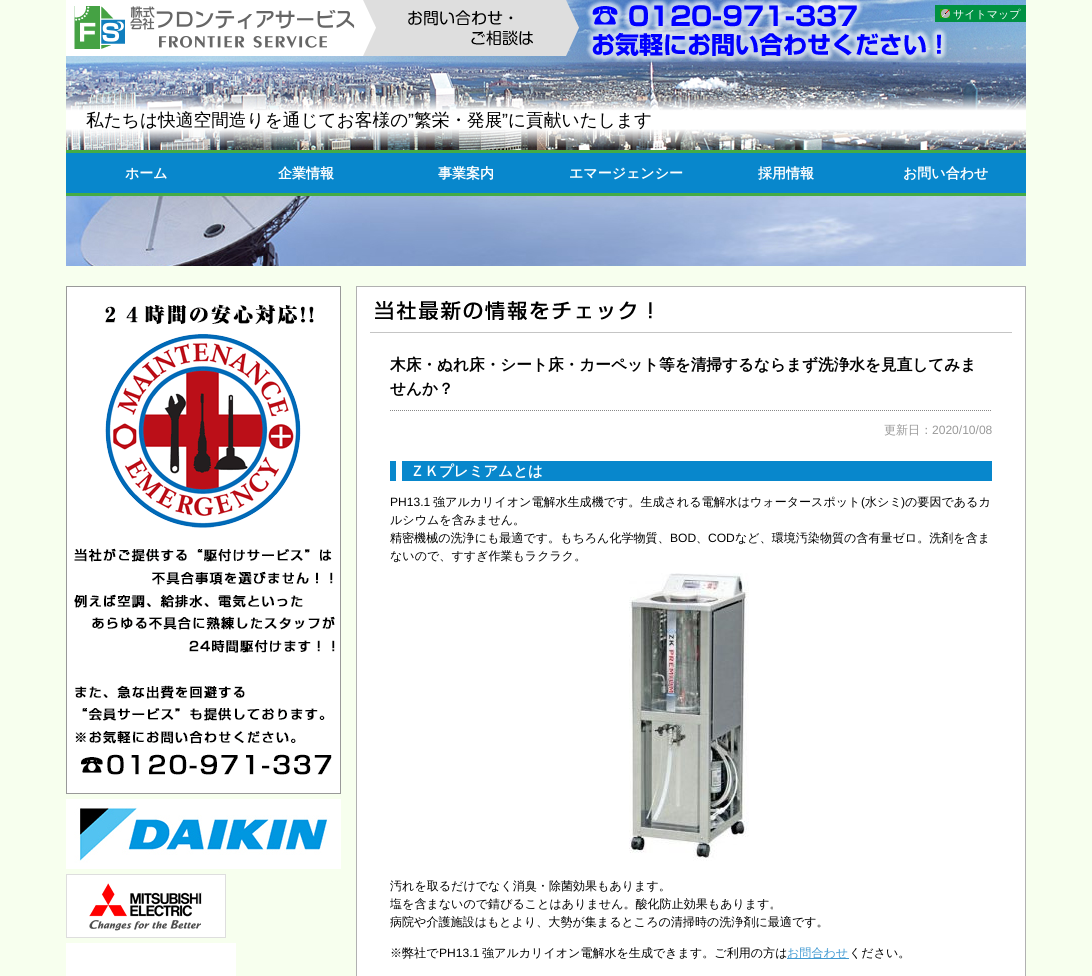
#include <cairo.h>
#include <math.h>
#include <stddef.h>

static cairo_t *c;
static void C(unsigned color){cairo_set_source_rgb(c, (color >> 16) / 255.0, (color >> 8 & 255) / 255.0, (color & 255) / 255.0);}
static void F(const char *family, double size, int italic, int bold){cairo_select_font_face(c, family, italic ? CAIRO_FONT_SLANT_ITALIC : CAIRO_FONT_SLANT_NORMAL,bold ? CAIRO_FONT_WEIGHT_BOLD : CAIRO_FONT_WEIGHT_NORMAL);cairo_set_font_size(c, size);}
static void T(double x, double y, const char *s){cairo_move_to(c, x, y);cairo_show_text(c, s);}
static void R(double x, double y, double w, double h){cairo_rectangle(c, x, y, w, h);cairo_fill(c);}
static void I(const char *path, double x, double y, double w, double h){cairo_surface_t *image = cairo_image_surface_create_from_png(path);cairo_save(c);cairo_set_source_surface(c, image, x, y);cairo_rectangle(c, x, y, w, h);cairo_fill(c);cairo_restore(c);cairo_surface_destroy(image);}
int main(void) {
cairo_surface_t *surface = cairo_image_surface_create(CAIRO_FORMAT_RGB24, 1092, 976);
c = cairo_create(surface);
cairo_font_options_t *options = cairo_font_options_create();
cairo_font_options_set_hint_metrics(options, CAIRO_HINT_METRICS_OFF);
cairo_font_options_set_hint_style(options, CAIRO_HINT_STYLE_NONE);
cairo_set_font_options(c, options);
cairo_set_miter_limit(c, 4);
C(0xf7ffee);
cairo_paint(c);
I("1.png",66,0,960,150);
C(0x009143);
R(935,5,91,17);
I("2.png",940,9,10,9);
F("WenQuanYi Zen Hei Medium",11,0,0);
C(0xffffff);
T(953,18,"サイトマップ");
I("3.png",74,6,281,43);
F("WenQuanYi Zen Hei Medium",17.7,0,0);
C(0x000000);
T(86,126,"私たちは快適空間造りを通じてお客様の");
F("Liberation Sans",17.7,0,0);
T(408,126,"”");
F("WenQuanYi Zen Hei Medium",17.7,0,0);
T(414,126,"繁栄・発展");
F("Liberation Sans",17.7,0,0);
T(502,126,"”");
F("WenQuanYi Zen Hei Medium",17.7,0,0);
T(508,126,"に貢献いたします");
I("4.png",66,150,160,46);
F("WenQuanYi Zen Hei",14,0,1);
C(0xffffff);
T(125,178,"ホーム");
I("4.png",226,150,160,46);
T(278,178,"企業情報");
I("4.png",386,150,160,46);
T(438,178,"事業案内");
I("4.png",546,150,160,46);
T(569,178,"エマージェンシー");
I("4.png",706,150,160,46);
T(758,178,"採用情報");
I("4.png",866,150,160,46);
T(903,178,"お問い合わせ");
I("5.png",66,196,960,70);
I("6.png",66,286,275,508);
I("7.png",66,799,275,70);
I("8.png",66,874,160,64);
R(66,943,170,33);
cairo_rectangle(c,356.5,286.5,669,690);
cairo_fill_preserve(c);
C(0xb1b1b1);
cairo_set_line_width(c,1);
cairo_stroke(c);
C(0xc5c5c5);
R(370,332,642,1);
I("9.png",375,301,277,19);
cairo_new_path(c);
cairo_move_to(c,390,410.5);
cairo_line_to(c,992,410.5);
C(0x888888);
cairo_set_dash(c,(double[]){1,1},2,0);
cairo_stroke(c);
F("WenQuanYi Zen Hei",15.65,0,1);
C(0x000000);
T(390,370,"木床・ぬれ床・シート床・カーペット等を清掃するならまず洗浄水を見直してみま");
T(390,394,"せんか？");
F("WenQuanYi Zen Hei Medium",12.05,0,0);
C(0x999999);
T(884,434,"更新日：");
F("Liberation Sans",12.05,0,0);
T(932,434,"2020/10/08");
I("10.png",390,461,602,20);
F("WenQuanYi Zen Hei",14.5,0,1);
C(0xffffff);
T(410,476,"ＺＫプレミアムとは");
F("Liberation Sans",12.05,0,0);
C(0x000000);
T(390,506,"PH13.1");
F("WenQuanYi Zen Hei Medium",12.05,0,0);
T(433,506,"強アルカリイオン電解水生成機です。生成される電解水はウォータースポット");
F("Liberation Sans",12.05,0,0);
T(861,506,"(");
F("WenQuanYi Zen Hei Medium",12.05,0,0);
T(865,506,"水シミ");
F("Liberation Sans",12.05,0,0);
T(901,506,")");
F("WenQuanYi Zen Hei Medium",12.05,0,0);
T(905,506,"の要因であるカ");
T(390,524,"ルシウムを含みません。");
T(390,542,"精密機械の洗浄にも最適です。もちろん化学物質、");
F("Liberation Sans",12.05,0,0);
T(670,542,"BOD");
F("WenQuanYi Zen Hei Medium",12.05,0,0);
T(696,542,"、");
F("Liberation Sans",12.05,0,0);
T(708,542,"COD");
F("WenQuanYi Zen Hei Medium",12.05,0,0);
T(735,542,"など、環境汚染物質の含有量ゼロ。洗剤を含ま");
T(390,560,"ないので、すすぎ作業もラクラク。");
I("11.png",629,573,120,288);
T(390,890,"汚れを取るだけでなく消臭・除菌効果もあります。");
T(390,908,"塩を含まないので錆びることはありません。酸化防止効果もあります。");
T(390,926,"病院や介護施設はもとより、大勢が集まるところの清掃時の洗浄剤に最適です。");
T(390,957,"※弊社で");
F("Liberation Sans",12.05,0,0);
T(439,957,"PH13.1");
F("WenQuanYi Zen Hei Medium",12.05,0,0);
T(482,957,"強アルカリイオン電解水を生成できます。ご利用の方は");
C(0x429ad2);
R(787,958,62,1);
T(787,957,"お問合わせ");
C(0x000000);
T(849,957,"ください。");
cairo_surface_write_to_png(surface, "o.png");
cairo_font_options_destroy(options);
cairo_destroy(c);
cairo_surface_destroy(surface);
return 0;
}
